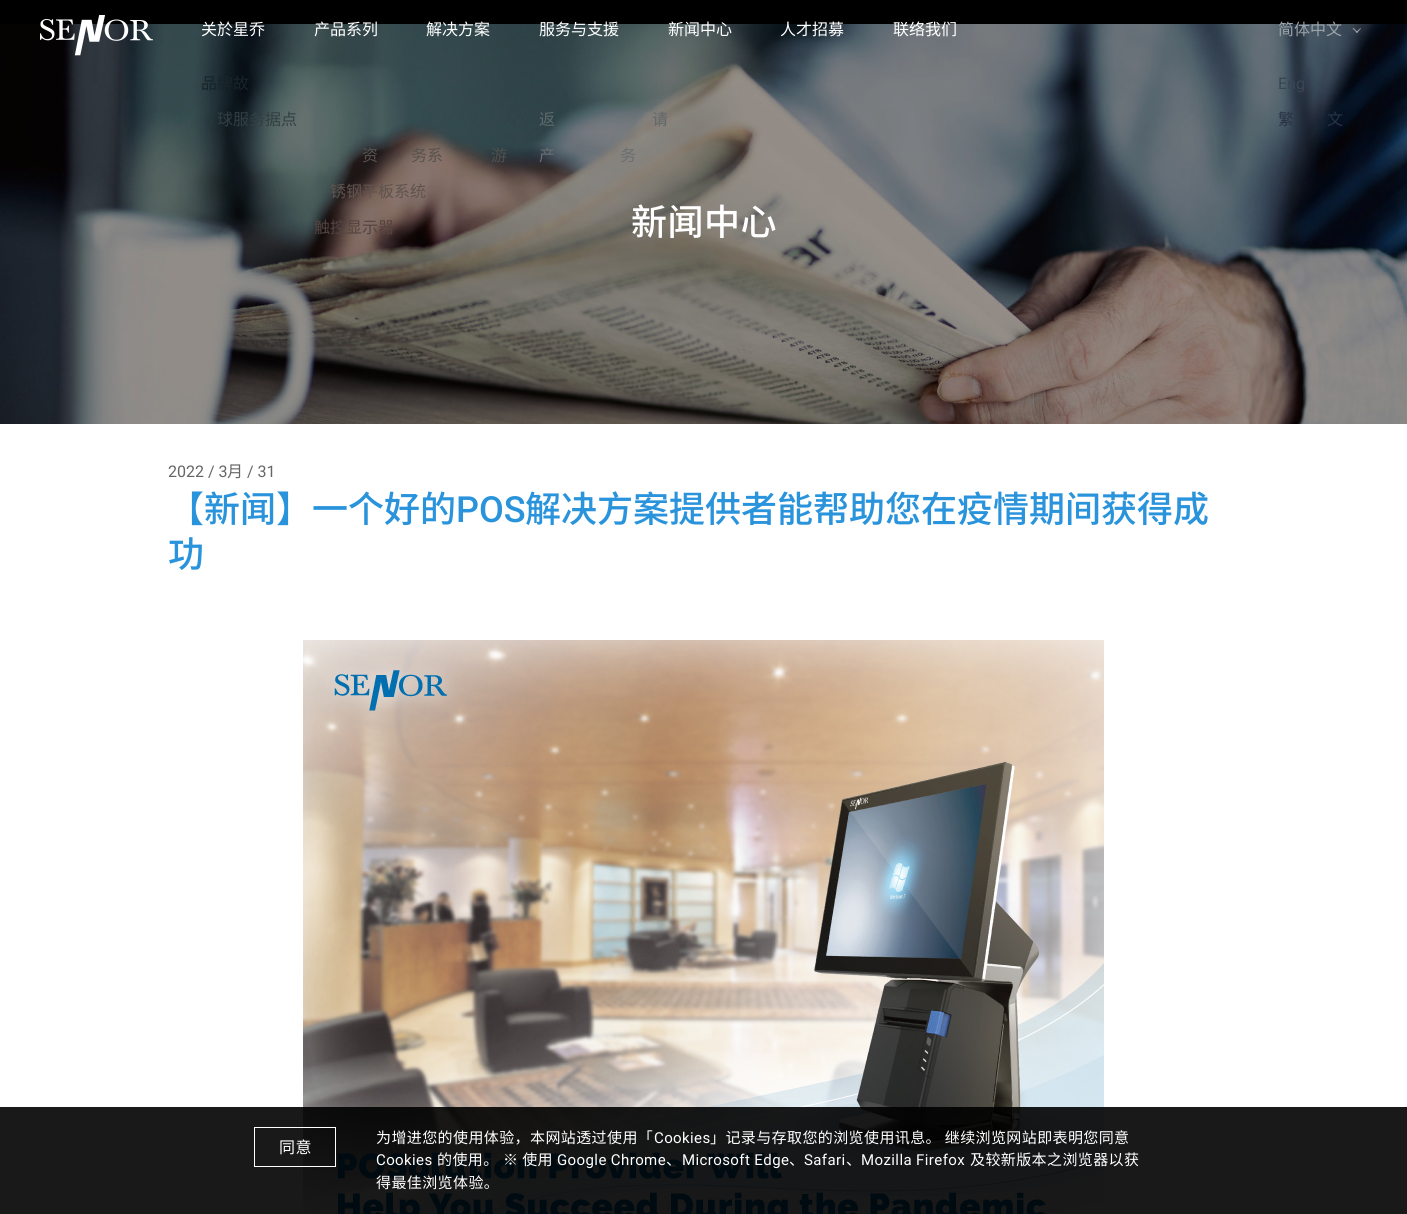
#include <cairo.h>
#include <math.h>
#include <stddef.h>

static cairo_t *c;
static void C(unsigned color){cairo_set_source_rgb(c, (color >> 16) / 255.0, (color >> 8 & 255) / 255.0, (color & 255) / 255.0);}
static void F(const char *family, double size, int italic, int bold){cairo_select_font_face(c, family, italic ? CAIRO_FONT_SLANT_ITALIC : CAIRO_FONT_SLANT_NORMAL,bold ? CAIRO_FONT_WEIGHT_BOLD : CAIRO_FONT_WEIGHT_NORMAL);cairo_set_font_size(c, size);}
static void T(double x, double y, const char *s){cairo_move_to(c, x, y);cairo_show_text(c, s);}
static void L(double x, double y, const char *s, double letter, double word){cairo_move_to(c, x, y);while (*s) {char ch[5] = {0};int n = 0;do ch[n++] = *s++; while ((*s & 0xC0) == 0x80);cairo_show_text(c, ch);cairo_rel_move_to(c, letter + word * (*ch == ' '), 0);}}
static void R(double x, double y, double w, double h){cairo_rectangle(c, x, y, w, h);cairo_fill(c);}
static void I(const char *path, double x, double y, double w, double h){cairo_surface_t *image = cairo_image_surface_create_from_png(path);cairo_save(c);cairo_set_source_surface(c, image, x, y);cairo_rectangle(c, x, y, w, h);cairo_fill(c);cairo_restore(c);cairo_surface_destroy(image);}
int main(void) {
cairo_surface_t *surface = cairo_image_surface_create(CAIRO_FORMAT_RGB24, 1407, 1214);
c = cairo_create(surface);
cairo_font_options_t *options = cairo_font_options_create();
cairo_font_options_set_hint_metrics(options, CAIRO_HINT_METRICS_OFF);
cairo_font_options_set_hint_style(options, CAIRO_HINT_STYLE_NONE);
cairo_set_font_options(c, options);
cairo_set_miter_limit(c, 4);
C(0x000000);
cairo_paint(c);
I("2.png",0,24,1407,400);
I("1.png",40,15,113,41);
F("Noto Sans SC",16,0,0);
C(0xffffff);
T(201,35,"关於星乔");
C(0x17232a);
T(201,89,"品牌故");
C(0x313f43);
T(217,125,"球服务据点");
C(0xffffff);
T(314,35,"产品系列");
C(0x58524e);
T(362,161,"资");
T(411,161,"务系");
C(0x5f534e);
T(330,197,"锈钢平板系统");
C(0x53433f);
T(314,233,"触控显示器");
C(0xffffff);
T(426,35,"解决方案");
C(0x514f4d);
T(491,161,"游");
C(0xffffff);
T(539,35,"服务与支援");
C(0x5f696c);
T(539,125,"返");
T(652,125,"请");
C(0x6a6f72);
T(539,161,"产");
T(620,161,"务");
C(0xffffff);
T(668,35,"新闻中心");
T(780,35,"人才招募");
T(893,35,"联络我们");
C(0x9ba2a8);
T(1278,35,"简体中文");
cairo_set_source_rgba(c,1,1,1,0.5);
cairo_new_path(c);
cairo_move_to(c,1360.5,28);
cairo_line_to(c,1361,28.5);
cairo_line_to(c,1357,33);
cairo_line_to(c,1356,32);
cairo_close_path(c);
cairo_fill(c);
cairo_new_path(c);
cairo_move_to(c,1353.5,28);
cairo_line_to(c,1357.5,32);
cairo_line_to(c,1357,33);
cairo_line_to(c,1352.5,28.5);
cairo_close_path(c);
cairo_fill(c);
F("Roboto",16,0,0);
C(0x384654);
T(1278,89,"Eng");
F("Noto Sans SC",16,0,0);
C(0x273342);
T(1278,125,"繁");
T(1327,125,"文");
C(0xffffff);
R(0,424,1407,790);
F("Noto Sans SC Medium",36,0,0);
L(631,235,"新闻中心",.5,0);
F("Roboto",16,0,0);
C(0x666666);
T(168,477,"2022 / 3");
F("Noto Sans SC",16,0,0);
T(227,477,"月");
F("Roboto",16,0,0);
T(247,477,"/ 31");
F("Noto Sans SC Medium",36,0,0);
C(0x2993dc);
T(168,522,"【新闻】一个好的");
F("Roboto Medium",36,0,0);
T(456,522,"POS");
F("Noto Sans SC Medium",36,0,0);
T(525,522,"解决方案提供者能帮助您在疫情期间获得成");
T(168,567,"功");
I("3.png",303,640,801,574);
cairo_set_source_rgba(c,0,0,0,0.9);
R(0,1107,1407,107);
cairo_rectangle(c,254.5,1127.5,81,39);
C(0xffffff);
cairo_set_line_width(c,1);
cairo_stroke(c);
F("Noto Sans SC",16,0,0);
L(279,1153,"同意",.4,0);
F("Noto Sans SC",15,0,0);
L(376,1143,"为增进您的使用体验，本网站透过使用「",.4,0);
F("Roboto",15,0,0);
L(654,1143,"Cookies",.4,0);
F("Noto Sans SC",15,0,0);
L(710,1143,"」记录与存取您的浏览使用讯息。 继续浏览网站即表明您同意",.4,0);
F("Roboto",15,0,0);
L(376,1165,"Cookies",.4,0);
F("Noto Sans SC",15,0,0);
L(437,1165,"的使用。",.4,0);
L(503,1165,"※ 使用",.4,0);
F("Roboto",15,0,0);
L(557,1165,"Google Chrome",.4,0);
F("Noto Sans SC",15,0,0);
L(666,1165,"、",.4,0);
F("Roboto",15,0,0);
L(682,1165,"Microsoft Edge",.4,0);
F("Noto Sans SC",15,0,0);
L(789,1165,"、",.4,0);
F("Roboto",15,0,0);
L(804,1165,"Safari",.4,0);
F("Noto Sans SC",15,0,0);
L(846,1165,"、",.4,0);
F("Roboto",15,0,0);
L(861,1165,"Mozilla Firefox",.4,0);
F("Noto Sans SC",15,0,0);
L(970,1165,"及较新版本之浏览器以获",.4,0);
L(376,1188,"得最佳浏览体验。",.4,0);
cairo_surface_write_to_png(surface, "o.png");
cairo_font_options_destroy(options);
cairo_destroy(c);
cairo_surface_destroy(surface);
return 0;
}
